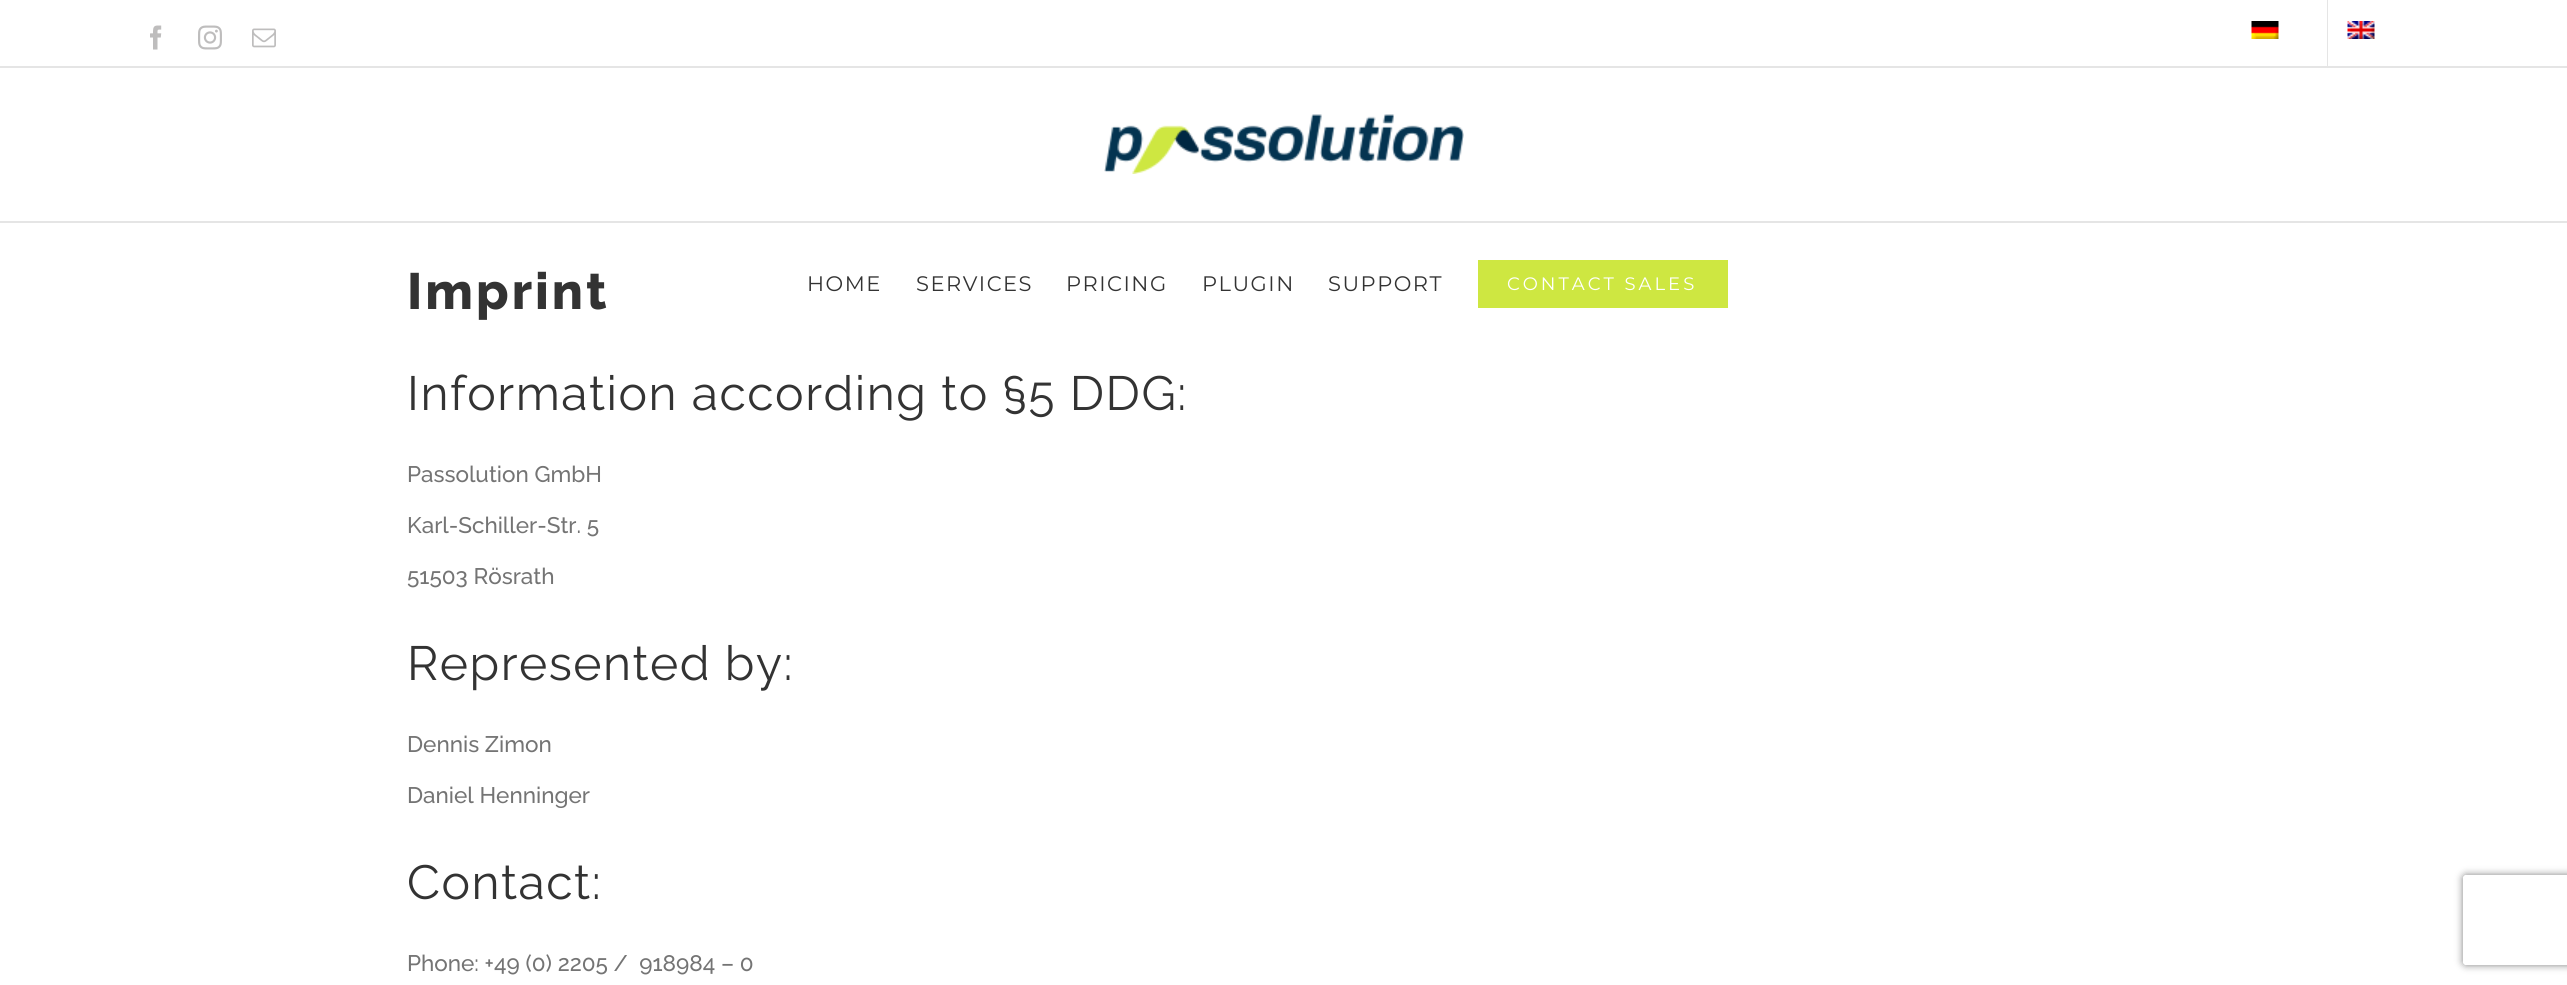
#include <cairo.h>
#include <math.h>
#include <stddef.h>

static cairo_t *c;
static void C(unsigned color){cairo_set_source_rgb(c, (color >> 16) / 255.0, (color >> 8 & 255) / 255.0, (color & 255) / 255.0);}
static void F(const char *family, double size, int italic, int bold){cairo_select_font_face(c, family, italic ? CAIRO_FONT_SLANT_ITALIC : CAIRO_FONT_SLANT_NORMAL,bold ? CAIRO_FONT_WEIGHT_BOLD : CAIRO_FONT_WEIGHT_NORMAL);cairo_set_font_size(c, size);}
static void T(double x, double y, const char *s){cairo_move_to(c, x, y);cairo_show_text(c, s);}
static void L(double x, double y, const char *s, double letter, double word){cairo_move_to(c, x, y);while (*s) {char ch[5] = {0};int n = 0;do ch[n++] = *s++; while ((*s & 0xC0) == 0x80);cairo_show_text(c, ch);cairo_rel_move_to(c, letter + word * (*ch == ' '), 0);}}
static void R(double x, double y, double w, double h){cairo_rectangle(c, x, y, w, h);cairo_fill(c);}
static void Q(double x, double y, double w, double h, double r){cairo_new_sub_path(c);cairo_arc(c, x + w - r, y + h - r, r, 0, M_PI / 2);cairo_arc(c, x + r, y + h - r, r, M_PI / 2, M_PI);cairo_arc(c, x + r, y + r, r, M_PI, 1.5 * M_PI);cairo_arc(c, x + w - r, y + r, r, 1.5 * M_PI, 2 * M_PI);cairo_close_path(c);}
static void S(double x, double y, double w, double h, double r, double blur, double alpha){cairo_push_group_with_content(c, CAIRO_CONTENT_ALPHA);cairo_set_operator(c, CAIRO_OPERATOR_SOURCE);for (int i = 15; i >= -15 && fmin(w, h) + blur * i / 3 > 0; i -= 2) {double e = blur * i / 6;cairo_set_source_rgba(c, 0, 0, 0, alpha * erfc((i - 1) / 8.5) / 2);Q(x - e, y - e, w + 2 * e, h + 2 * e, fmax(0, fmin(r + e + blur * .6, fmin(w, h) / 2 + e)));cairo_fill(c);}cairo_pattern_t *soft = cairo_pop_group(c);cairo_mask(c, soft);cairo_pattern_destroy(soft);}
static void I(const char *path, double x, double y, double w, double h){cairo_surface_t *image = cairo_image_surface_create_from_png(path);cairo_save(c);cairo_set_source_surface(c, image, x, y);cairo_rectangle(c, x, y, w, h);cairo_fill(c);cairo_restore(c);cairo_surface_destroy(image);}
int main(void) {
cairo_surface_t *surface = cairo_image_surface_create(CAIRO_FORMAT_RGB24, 2567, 985);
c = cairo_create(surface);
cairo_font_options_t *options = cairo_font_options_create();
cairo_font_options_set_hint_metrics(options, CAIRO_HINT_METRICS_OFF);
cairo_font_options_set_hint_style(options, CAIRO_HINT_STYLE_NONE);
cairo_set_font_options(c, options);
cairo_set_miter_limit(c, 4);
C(0xffffff);
cairo_paint(c);
F("Raleway ExtraBold",51,0,0);
C(0x333333);
L(407,309,"Imprint",3,0);
F("Raleway",48,0,0);
L(407,410,"Information according to §5 DDG:",1.5,0);
F("Raleway Medium",22.5,0,0);
C(0x747474);
T(407,482,"Passolution GmbH");
T(407,533,"Karl-Schiller-Str. 5");
T(407,584,"51503 Rösrath");
F("Raleway",48,0,0);
C(0x333333);
L(407,680,"Represented by:",1.5,0);
F("Raleway Medium",22.5,0,0);
C(0x747474);
T(407,752,"Dennis Zimon");
T(407,803,"Daniel Henninger");
F("Raleway",48,0,0);
C(0x333333);
L(407,899,"Contact:",1.5,0);
F("Raleway Medium",22.5,0,0);
C(0x747474);
T(407,971,"Phone: +49 (0) 2205 /  918984 – 0");
C(0xe5e5e5);
R(0,66,2567,2);
I("1.png",150,25,12,25);
I("2.png",198,25,24,25);
I("3.png",252,28,24,20);
I("4.png",2251,21,28,18);
R(2327,0,1,66);
I("5.png",2347,21,28,18);
R(0,221,2567,2);
I("6.png",1104,114,360,60);
F("Montserrat",21,0,0);
C(0x333333);
L(807,291,"HOME",1.5,0);
L(916,291,"SERVICES",1.5,0);
L(1066,291,"PRICING",1.5,0);
L(1202,291,"PLUGIN",1.5,0);
L(1328,291,"SUPPORT",1.5,0);
C(0xcee741);
R(1478,260,250,48);
F("Montserrat",18,0,0);
C(0xffffff);
L(1507,290,"CONTACT SALES",3,0);
cairo_save(c);
cairo_set_fill_rule(c,CAIRO_FILL_RULE_EVEN_ODD);
cairo_new_path(c);
cairo_move_to(c,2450,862);
cairo_line_to(c,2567,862);
cairo_line_to(c,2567,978);
cairo_line_to(c,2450,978);
cairo_close_path(c);
cairo_move_to(c,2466,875);
cairo_line_to(c,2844,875);
cairo_curve_to(c,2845.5,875,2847,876.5,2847,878);
cairo_line_to(c,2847,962);
cairo_curve_to(c,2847,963.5,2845.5,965,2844,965);
cairo_line_to(c,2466,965);
cairo_curve_to(c,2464.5,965,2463,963.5,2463,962);
cairo_line_to(c,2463,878);
cairo_curve_to(c,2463,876.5,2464.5,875,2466,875);
cairo_close_path(c);
cairo_clip(c);
C(0x808080);
S(2463,875,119,90,3,4,1);
cairo_restore(c);
cairo_surface_write_to_png(surface, "o.png");
cairo_font_options_destroy(options);
cairo_destroy(c);
cairo_surface_destroy(surface);
return 0;
}
